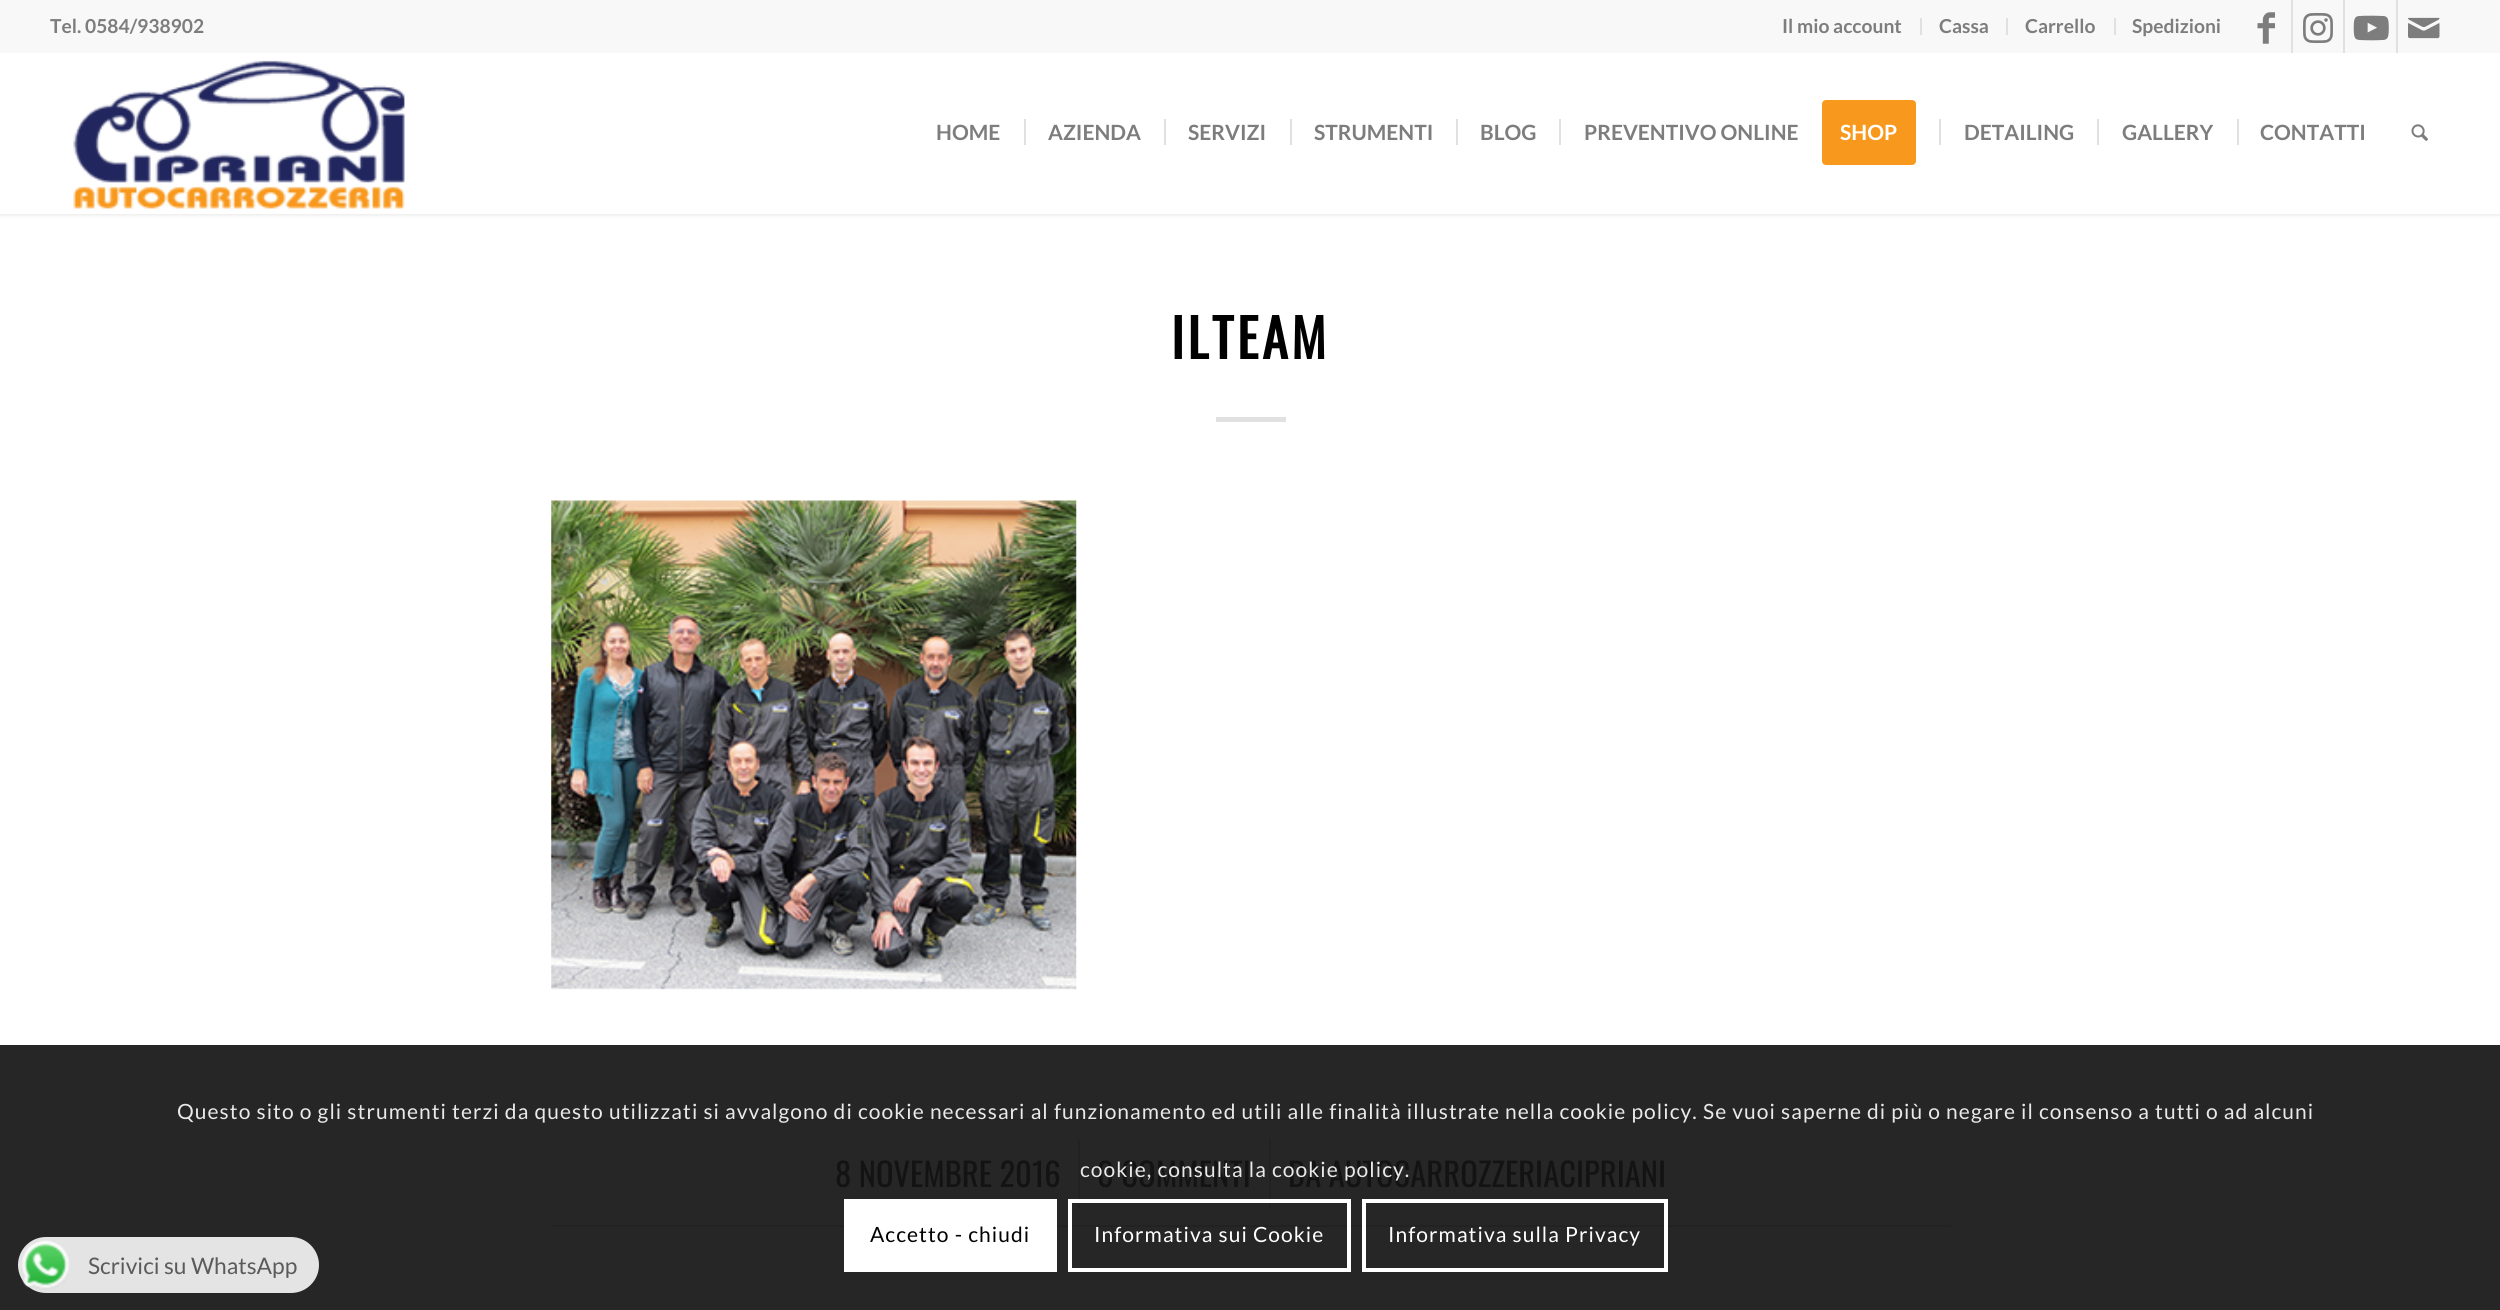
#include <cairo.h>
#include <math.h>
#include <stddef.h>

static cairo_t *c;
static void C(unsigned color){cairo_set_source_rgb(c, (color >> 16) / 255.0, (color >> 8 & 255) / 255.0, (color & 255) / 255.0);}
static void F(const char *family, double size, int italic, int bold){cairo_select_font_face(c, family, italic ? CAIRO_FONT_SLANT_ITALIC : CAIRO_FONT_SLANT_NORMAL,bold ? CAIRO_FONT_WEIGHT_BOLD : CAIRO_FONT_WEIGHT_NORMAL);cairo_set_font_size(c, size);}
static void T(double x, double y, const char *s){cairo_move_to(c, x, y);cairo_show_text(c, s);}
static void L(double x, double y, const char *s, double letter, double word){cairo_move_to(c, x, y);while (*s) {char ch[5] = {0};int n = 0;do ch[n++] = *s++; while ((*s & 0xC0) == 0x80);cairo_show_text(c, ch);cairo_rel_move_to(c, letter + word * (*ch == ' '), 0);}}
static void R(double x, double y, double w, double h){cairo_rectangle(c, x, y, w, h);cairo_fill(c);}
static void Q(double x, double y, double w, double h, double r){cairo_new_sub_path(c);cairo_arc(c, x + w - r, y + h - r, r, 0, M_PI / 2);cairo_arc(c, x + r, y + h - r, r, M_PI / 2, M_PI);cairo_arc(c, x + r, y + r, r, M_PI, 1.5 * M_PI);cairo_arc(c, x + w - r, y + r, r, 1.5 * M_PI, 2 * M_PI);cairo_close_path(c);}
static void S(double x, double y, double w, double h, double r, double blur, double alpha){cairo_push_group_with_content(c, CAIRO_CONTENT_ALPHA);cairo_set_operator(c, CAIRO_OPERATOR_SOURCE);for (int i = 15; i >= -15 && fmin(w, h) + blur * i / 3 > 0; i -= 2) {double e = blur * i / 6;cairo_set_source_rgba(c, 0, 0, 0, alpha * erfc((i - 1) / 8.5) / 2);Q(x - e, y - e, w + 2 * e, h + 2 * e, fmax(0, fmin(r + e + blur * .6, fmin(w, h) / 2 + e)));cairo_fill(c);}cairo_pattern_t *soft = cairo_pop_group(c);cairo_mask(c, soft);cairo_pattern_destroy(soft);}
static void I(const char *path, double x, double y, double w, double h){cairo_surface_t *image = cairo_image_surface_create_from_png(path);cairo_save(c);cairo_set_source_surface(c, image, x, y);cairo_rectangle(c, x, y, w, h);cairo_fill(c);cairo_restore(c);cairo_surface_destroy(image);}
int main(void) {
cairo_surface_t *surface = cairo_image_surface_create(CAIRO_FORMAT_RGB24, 2500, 1310);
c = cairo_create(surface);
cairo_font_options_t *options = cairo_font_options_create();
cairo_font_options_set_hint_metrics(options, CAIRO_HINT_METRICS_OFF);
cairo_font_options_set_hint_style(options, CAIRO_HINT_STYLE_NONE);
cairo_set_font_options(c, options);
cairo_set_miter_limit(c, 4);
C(0xffffff);
cairo_paint(c);
C(0x262626);
R(0,1045,2500,265);
C(0x000000);
S(-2,-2,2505,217,0,2,.1);
C(0xf8f8f8);
R(0,0,2500,53);
F("Lato",19.25,0,1);
C(0x7d7d7d);
T(50,33,"Tel. 0584/938902");
C(0xe1e1e1);
R(1920,18,2,17);
C(0x7d7d7d);
T(1782,33,"Il mio account");
C(0xe1e1e1);
R(2006,18,2,17);
C(0x7d7d7d);
T(1939,33,"Cassa");
C(0xe1e1e1);
R(2114,18,2,17);
C(0x7d7d7d);
T(2025,33,"Carrello");
T(2132,33,"Spedizioni");
C(0xe1e1e1);
R(2291,0,2,53);
I("1.png",2257,12,18,32);
R(2343,0,2,53);
I("2.png",2303,13,30,30);
R(2396,0,2,53);
I("3.png",2353,15,36,26);
I("4.png",2408,17,32,22);
C(0xffffff);
R(0,53,2500,161);
I("5.png",73,60,332,149);
F("Lato",21,0,1);
C(0x7d7d7d);
T(936,140,"HOME");
T(1048,140,"AZIENDA");
C(0xe1e1e1);
R(1024,119,2,26);
C(0x7d7d7d);
T(1188,140,"SERVIZI");
C(0xe1e1e1);
R(1164,119,2,26);
C(0x7d7d7d);
T(1314,140,"STRUMENTI");
C(0xe1e1e1);
R(1290,119,2,26);
C(0x7d7d7d);
T(1480,140,"BLOG");
C(0xe1e1e1);
R(1456,119,2,26);
C(0x7d7d7d);
T(1584,140,"PREVENTIVO ONLINE");
C(0xe1e1e1);
R(1559,119,2,26);
C(0xf8991d);
Q(1824,102,90,61,2);
cairo_fill_preserve(c);
cairo_set_line_width(c,4);
cairo_stroke(c);
C(0xffffff);
T(1840,140,"SHOP");
C(0x7d7d7d);
T(1964,140,"DETAILING");
C(0xe1e1e1);
R(1939,119,2,26);
C(0x7d7d7d);
T(2122,140,"GALLERY");
C(0xe1e1e1);
R(2097,119,2,26);
C(0x7d7d7d);
T(2260,140,"CONTATTI");
C(0xe1e1e1);
R(2237,119,2,26);
I("6.png",2411,124,17,17);
F("Oswald",52.5,0,1);
C(0x000000);
L(1171,359,"ILTEAM",3.5,0);
C(0xe1e1e1);
R(1216,417,70,5);
I("7.png",551,500,526,490);
C(0x222222);
R(551,1118,1400,2);
R(551,1225,1400,2);
F("Oswald",32.6,0,0);
C(0x131313);
T(835,1187,"8 NOVEMBRE 2016");
C(0x222222);
R(1078,1139,2,69);
C(0x131313);
T(1097,1187,"0 COMMENTI");
C(0x222222);
R(1269,1139,2,69);
C(0x131313);
T(1288,1187,"DA AUTOCARROZZERIACIPRIANI");
F("Lato",21,0,0);
C(0xe9e9e9);
L(177,1119,"Questo sito o gli strumenti terzi da questo utilizzati si avvalgono di cookie necessari al funzionamento ed utili alle finalità illustrate nella cookie policy. Se vuoi saperne di più o negare il consenso a tutti o ad alcuni",1.05,0);
L(1080,1177,"cookie, consulta la cookie policy.",1.05,0);
C(0xffffff);
R(844,1199,213,73);
C(0x000000);
L(870,1242,"Accetto - chiudi",1.05,0);
cairo_rectangle(c,1070,1201,279,69);
C(0xffffff);
cairo_stroke(c);
L(1094,1242,"Informativa sui Cookie",1.05,0);
cairo_rectangle(c,1364,1201,302,69);
cairo_stroke(c);
L(1388,1242,"Informativa sulla Privacy",1.05,0);
C(0xe4e4e4);
Q(18,1237,301,56,28);
cairo_fill(c);
I("8.png",21,1240,49,50);
F("Lato",22.75,0,0);
C(0x5b5b5b);
T(88,1274,"Scrivici su WhatsApp");
cairo_surface_write_to_png(surface, "o.png");
cairo_font_options_destroy(options);
cairo_destroy(c);
cairo_surface_destroy(surface);
return 0;
}
